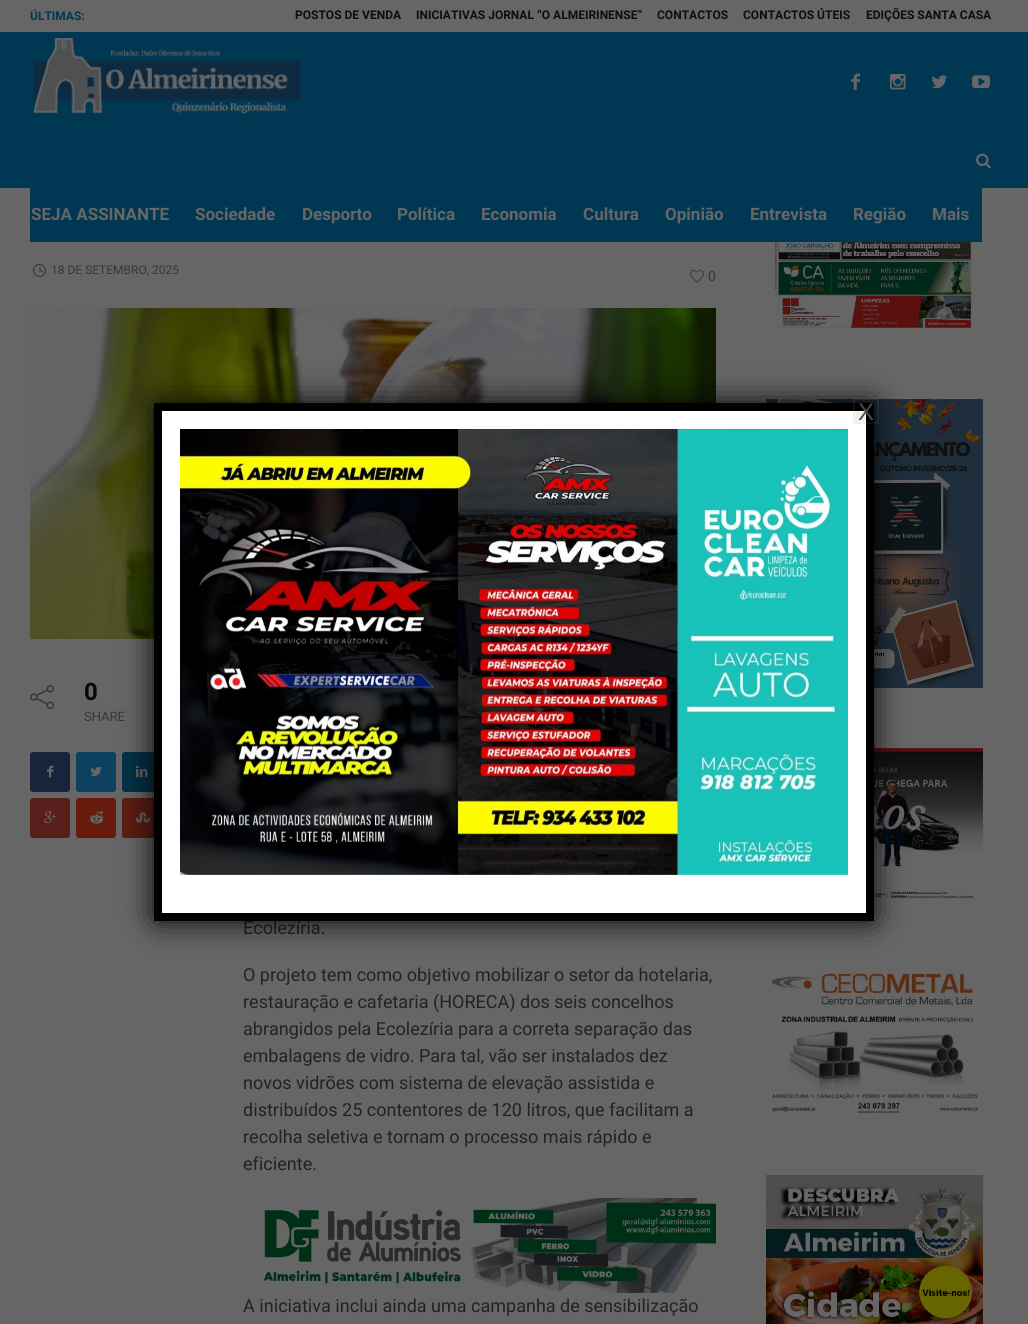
#include <cairo.h>
#include <math.h>
#include <stddef.h>

static cairo_t *c;
static void C(unsigned color){cairo_set_source_rgb(c, (color >> 16) / 255.0, (color >> 8 & 255) / 255.0, (color & 255) / 255.0);}
static void F(const char *family, double size, int italic, int bold){cairo_select_font_face(c, family, italic ? CAIRO_FONT_SLANT_ITALIC : CAIRO_FONT_SLANT_NORMAL,bold ? CAIRO_FONT_WEIGHT_BOLD : CAIRO_FONT_WEIGHT_NORMAL);cairo_set_font_size(c, size);}
static void T(double x, double y, const char *s){cairo_move_to(c, x, y);cairo_show_text(c, s);}
static void R(double x, double y, double w, double h){cairo_rectangle(c, x, y, w, h);cairo_fill(c);}
static void Q(double x, double y, double w, double h, double r){cairo_new_sub_path(c);cairo_arc(c, x + w - r, y + h - r, r, 0, M_PI / 2);cairo_arc(c, x + r, y + h - r, r, M_PI / 2, M_PI);cairo_arc(c, x + r, y + r, r, M_PI, 1.5 * M_PI);cairo_arc(c, x + w - r, y + r, r, 1.5 * M_PI, 2 * M_PI);cairo_close_path(c);}
static void S(double x, double y, double w, double h, double r, double blur, double alpha){cairo_push_group_with_content(c, CAIRO_CONTENT_ALPHA);cairo_set_operator(c, CAIRO_OPERATOR_SOURCE);for (int i = 15; i >= -15 && fmin(w, h) + blur * i / 3 > 0; i -= 2) {double e = blur * i / 6;cairo_set_source_rgba(c, 0, 0, 0, alpha * erfc((i - 1) / 8.5) / 2);Q(x - e, y - e, w + 2 * e, h + 2 * e, fmax(0, fmin(r + e + blur * .6, fmin(w, h) / 2 + e)));cairo_fill(c);}cairo_pattern_t *soft = cairo_pop_group(c);cairo_mask(c, soft);cairo_pattern_destroy(soft);}
static void I(const char *path, double x, double y, double w, double h){cairo_surface_t *image = cairo_image_surface_create_from_png(path);cairo_save(c);cairo_set_source_surface(c, image, x, y);cairo_rectangle(c, x, y, w, h);cairo_fill(c);cairo_restore(c);cairo_surface_destroy(image);}
int main(void) {
cairo_surface_t *surface = cairo_image_surface_create(CAIRO_FORMAT_RGB24, 1028, 1324);
c = cairo_create(surface);
cairo_font_options_t *options = cairo_font_options_create();
cairo_font_options_set_hint_metrics(options, CAIRO_HINT_METRICS_OFF);
cairo_font_options_set_hint_style(options, CAIRO_HINT_STYLE_NONE);
cairo_set_font_options(c, options);
cairo_set_miter_limit(c, 4);
C(0x666666);
cairo_paint(c);
F("Heebo",12,0,1);
C(0x003753);
T(30,20,"ÚLTIMAS:");
C(0x0e0e0e);
T(295,19,"POSTOS DE VENDA");
T(416,19,"INICIATIVAS JORNAL “O ALMEIRINENSE”");
T(657,19,"CONTACTOS");
T(743,19,"CONTACTOS ÚTEIS");
T(866,19,"EDIÇÕES SANTA CASA");
C(0x003753);
R(0,32,1028,156);
I("1.png",33,38,268,77);
I("2.png",851,73,9,17);
I("3.png",890,74,16,16);
I("4.png",931,75,17,14);
I("5.png",972,75,19,14);
I("6.png",976,153,15,16);
R(30,188,952,54);
F("Heebo",17,0,1);
C(0x666666);
T(31,220,"SEJA ASSINANTE");
T(195,220,"Sociedade");
T(302,220,"Desporto");
T(397,220,"Política");
T(481,220,"Economia");
T(583,220,"Cultura");
T(665,220,"Opinião");
T(750,220,"Entrevista");
T(853,220,"Região");
T(932,220,"Mais");
I("7.png",33,264,13,13);
F("Heebo",12,0,0);
C(0x363636);
T(51,274,"18 DE SETEMBRO, 2025");
I("8.png",690,269,14,14);
F("Heebo",14,0,0);
T(708,281,"0");
I("9.png",30,308,686,331);
I("10.png",30,685,24,25);
F("Heebo",24,0,1);
C(0x080808);
T(84,700,"0");
F("Heebo",13,0,0);
C(0x363636);
T(84,721,"SHARE");
C(0x18243c);
Q(30,752,40,40,3);
cairo_fill(c);
I("11.png",47,765,7,13);
C(0x0e4060);
Q(76,752,40,40,3);
cairo_fill(c);
I("12.png",90,766,12,11);
C(0x043047);
Q(122,752,40,40,3);
cairo_fill(c);
I("13.png",136,765,12,13);
C(0x581e19);
Q(30,798,40,40,3);
cairo_fill(c);
I("14.png",44,810,12,13);
C(0x661b0c);
Q(76,798,40,40,3);
cairo_fill(c);
I("15.png",90,811,13,13);
C(0x5e1d13);
Q(122,798,40,40,3);
cairo_fill(c);
I("16.png",136,812,14,11);
F("Heebo",18,0,0);
C(0x222222);
T(243,934,"Ecolezíria.");
T(243,981,"O projeto tem como objetivo mobilizar o setor da hotelaria,");
T(243,1008,"restauração e cafetaria (HORECA) dos seis concelhos");
T(243,1035,"abrangidos pela Ecolezíria para a correta separação das");
T(243,1062,"embalagens de vidro. Para tal, vão ser instalados dez");
T(243,1089,"novos vidrões com sistema de elevação assistida e");
T(243,1116,"distribuídos 25 contentores de 120 litros, que facilitam a");
T(243,1143,"recolha seletiva e tornam o processo mais rápido e");
T(243,1170,"eficiente.");
I("17.png",263,1198,453,95);
T(243,1312,"A iniciativa inclui ainda uma campanha de sensibilização");
I("18.png",774,242,199,88);
I("19.png",766,399,217,289);
I("20.png",874,748,109,151);
I("21.png",771,973,207,141);
I("22.png",766,1175,217,149);
C(0x020202);
S(154,403,720,518,3,15,1);
C(0xffffff);
R(162,411,704,502);
cairo_new_path(c);
cairo_move_to(c,158,407);
cairo_line_to(c,870,407);
cairo_line_to(c,870,917);
cairo_line_to(c,158,917);
cairo_close_path(c);
C(0x000000);
cairo_set_line_width(c,8);
cairo_stroke(c);
cairo_set_source_rgba(c,0,0,0,0.06);
R(853,398,26,26);
cairo_rectangle(c,854,399,24,24);
cairo_set_source_rgba(c,1,1,1,0.06);
cairo_set_line_width(c,2);
cairo_stroke(c);
F("Liberation Sans",24,0,0);
C(0x4c4c4c);
T(858,420,"X");
I("23.png",180,429,668,446);
cairo_surface_write_to_png(surface, "o.png");
cairo_font_options_destroy(options);
cairo_destroy(c);
cairo_surface_destroy(surface);
return 0;
}
